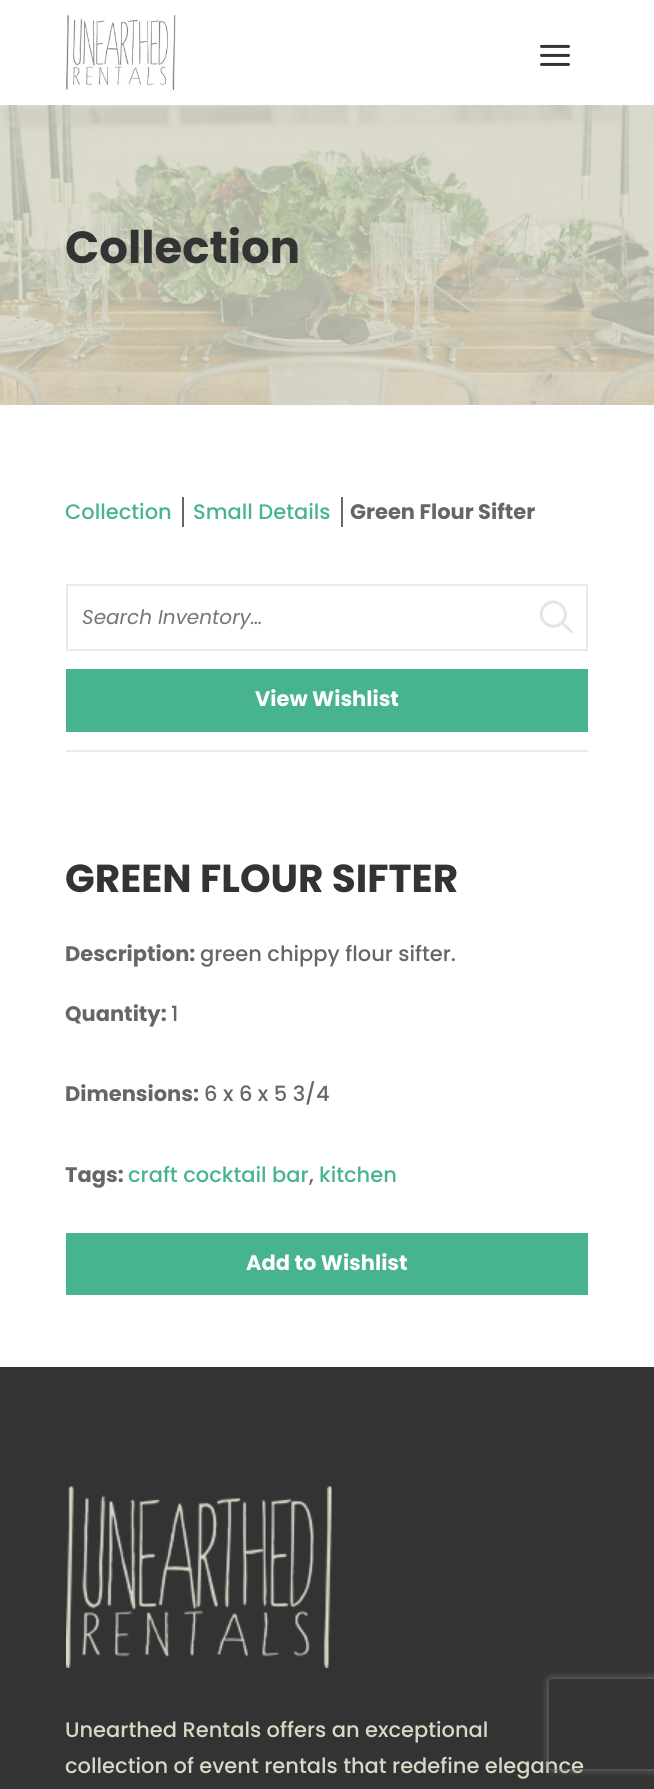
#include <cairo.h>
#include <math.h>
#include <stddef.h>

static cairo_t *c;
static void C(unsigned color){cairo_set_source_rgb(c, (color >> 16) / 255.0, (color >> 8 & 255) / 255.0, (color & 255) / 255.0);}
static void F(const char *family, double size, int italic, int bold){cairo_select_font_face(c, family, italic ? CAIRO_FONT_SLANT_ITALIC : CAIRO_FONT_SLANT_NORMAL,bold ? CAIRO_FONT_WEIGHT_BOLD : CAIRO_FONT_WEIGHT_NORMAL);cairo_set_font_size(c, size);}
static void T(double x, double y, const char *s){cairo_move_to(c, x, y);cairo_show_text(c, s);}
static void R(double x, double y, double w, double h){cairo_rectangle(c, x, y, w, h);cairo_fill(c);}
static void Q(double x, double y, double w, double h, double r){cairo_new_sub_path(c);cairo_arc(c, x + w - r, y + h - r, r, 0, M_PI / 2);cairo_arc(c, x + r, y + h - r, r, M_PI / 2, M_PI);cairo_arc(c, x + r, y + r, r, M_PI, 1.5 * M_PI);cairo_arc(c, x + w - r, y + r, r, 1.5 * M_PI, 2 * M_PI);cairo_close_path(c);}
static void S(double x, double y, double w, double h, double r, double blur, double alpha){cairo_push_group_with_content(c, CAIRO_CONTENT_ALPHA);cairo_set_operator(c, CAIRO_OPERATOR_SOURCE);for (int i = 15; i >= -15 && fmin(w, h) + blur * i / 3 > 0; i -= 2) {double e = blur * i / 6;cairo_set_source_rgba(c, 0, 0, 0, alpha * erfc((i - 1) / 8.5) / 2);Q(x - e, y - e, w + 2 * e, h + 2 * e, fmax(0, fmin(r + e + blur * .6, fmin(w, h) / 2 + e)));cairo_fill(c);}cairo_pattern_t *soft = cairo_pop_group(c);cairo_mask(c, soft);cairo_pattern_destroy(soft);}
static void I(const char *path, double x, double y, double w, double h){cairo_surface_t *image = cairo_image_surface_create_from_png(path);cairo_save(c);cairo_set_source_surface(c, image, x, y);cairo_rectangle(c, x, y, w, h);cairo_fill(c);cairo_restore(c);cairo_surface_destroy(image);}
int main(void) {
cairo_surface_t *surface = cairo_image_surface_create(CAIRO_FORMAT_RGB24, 654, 1789);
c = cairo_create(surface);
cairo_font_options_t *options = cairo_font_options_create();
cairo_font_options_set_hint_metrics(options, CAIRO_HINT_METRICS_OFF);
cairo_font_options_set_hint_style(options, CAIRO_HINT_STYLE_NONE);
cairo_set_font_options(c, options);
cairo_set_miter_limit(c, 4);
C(0xffffff);
cairo_paint(c);
I("1.png",66,15,110,75);
I("2.png",540,44,30,22);
I("3.png",0,105,654,300);
F("Poppins",45,0,1);
C(0x333333);
T(65,263,"Collection");
C(0xeaeaea);
R(66,750,522,2);
F("Poppins Medium",21,0,0);
C(0x48b48f);
T(65,519,"Collection");
T(193,519,"Small Details");
C(0x666666);
R(182,497,2,30);
F("Poppins",21,0,1);
T(350,519,"Green Flour Sifter");
R(341,497,2,30);
cairo_rectangle(c,67,585,520,65);
C(0xeaeaea);
cairo_stroke(c);
F("Poppins",20,1,0);
C(0x757575);
T(82,624,"Search Inventory…");
cairo_new_path(c);
cairo_move_to(c,545,605.5);
cairo_curve_to(c,556,594.5,573,611.5,562,622.5);
cairo_curve_to(c,550.5,634,533.5,617,545,605.5);
cairo_close_path(c);
C(0xe3e5e9);
cairo_set_line_width(c,3);
cairo_stroke(c);
cairo_new_path(c);
cairo_move_to(c,562.5,623);
cairo_line_to(c,571,631.5);
cairo_set_line_cap(c,CAIRO_LINE_CAP_SQUARE);
cairo_stroke(c);
C(0x48b48f);
R(66,669,522,63);
F("Poppins",21,0,1);
C(0xffffff);
T(255,706,"View Wishlist");
F("Poppins",39,0,1);
C(0x333333);
T(65,892,"GREEN FLOUR SIFTER");
F("Poppins",21,0,1);
C(0x666666);
T(65,961,"Description:");
F("Poppins Medium",21,0,0);
T(200,961,"green chippy flour sifter.");
F("Poppins",21,0,1);
T(65,1021,"Quantity:");
F("Poppins Medium",21,0,0);
T(171,1021,"1");
F("Poppins",21,0,1);
T(65,1101,"Dimensions:");
F("Poppins Medium",21,0,0);
T(204,1101,"6 x 6 x 5 3/4");
F("Poppins",21,0,1);
T(65,1182,"Tags:");
F("Poppins Medium",21,0,0);
C(0x48b48f);
T(128,1182,"craft cocktail bar");
C(0x666666);
T(309,1182,",");
C(0x48b48f);
T(319,1182,"kitchen");
R(66,1233,522,62);
F("Poppins",21,0,1);
C(0xffffff);
T(246,1270,"Add to Wishlist");
C(0x333333);
R(0,1367,654,422);
I("4.png",66,1486,266,182);
F("Poppins Medium",21,0,0);
C(0xd8d8c7);
T(65,1737,"Unearthed Rentals offers an exceptional");
T(65,1773,"collection of event rentals that redefine elegance");
cairo_save(c);
cairo_set_fill_rule(c,CAIRO_FILL_RULE_EVEN_ODD);
cairo_new_path(c);
cairo_move_to(c,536,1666);
cairo_line_to(c,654,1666);
cairo_line_to(c,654,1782);
cairo_line_to(c,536,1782);
cairo_close_path(c);
cairo_move_to(c,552,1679);
cairo_line_to(c,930,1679);
cairo_curve_to(c,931.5,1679,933,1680.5,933,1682);
cairo_line_to(c,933,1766);
cairo_curve_to(c,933,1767.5,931.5,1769,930,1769);
cairo_line_to(c,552,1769);
cairo_curve_to(c,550.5,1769,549,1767.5,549,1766);
cairo_line_to(c,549,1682);
cairo_curve_to(c,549,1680.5,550.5,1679,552,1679);
cairo_close_path(c);
cairo_clip(c);
C(0x808080);
S(549,1679,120,90,3,4,1);
cairo_restore(c);
cairo_surface_write_to_png(surface, "o.png");
cairo_font_options_destroy(options);
cairo_destroy(c);
cairo_surface_destroy(surface);
return 0;
}
